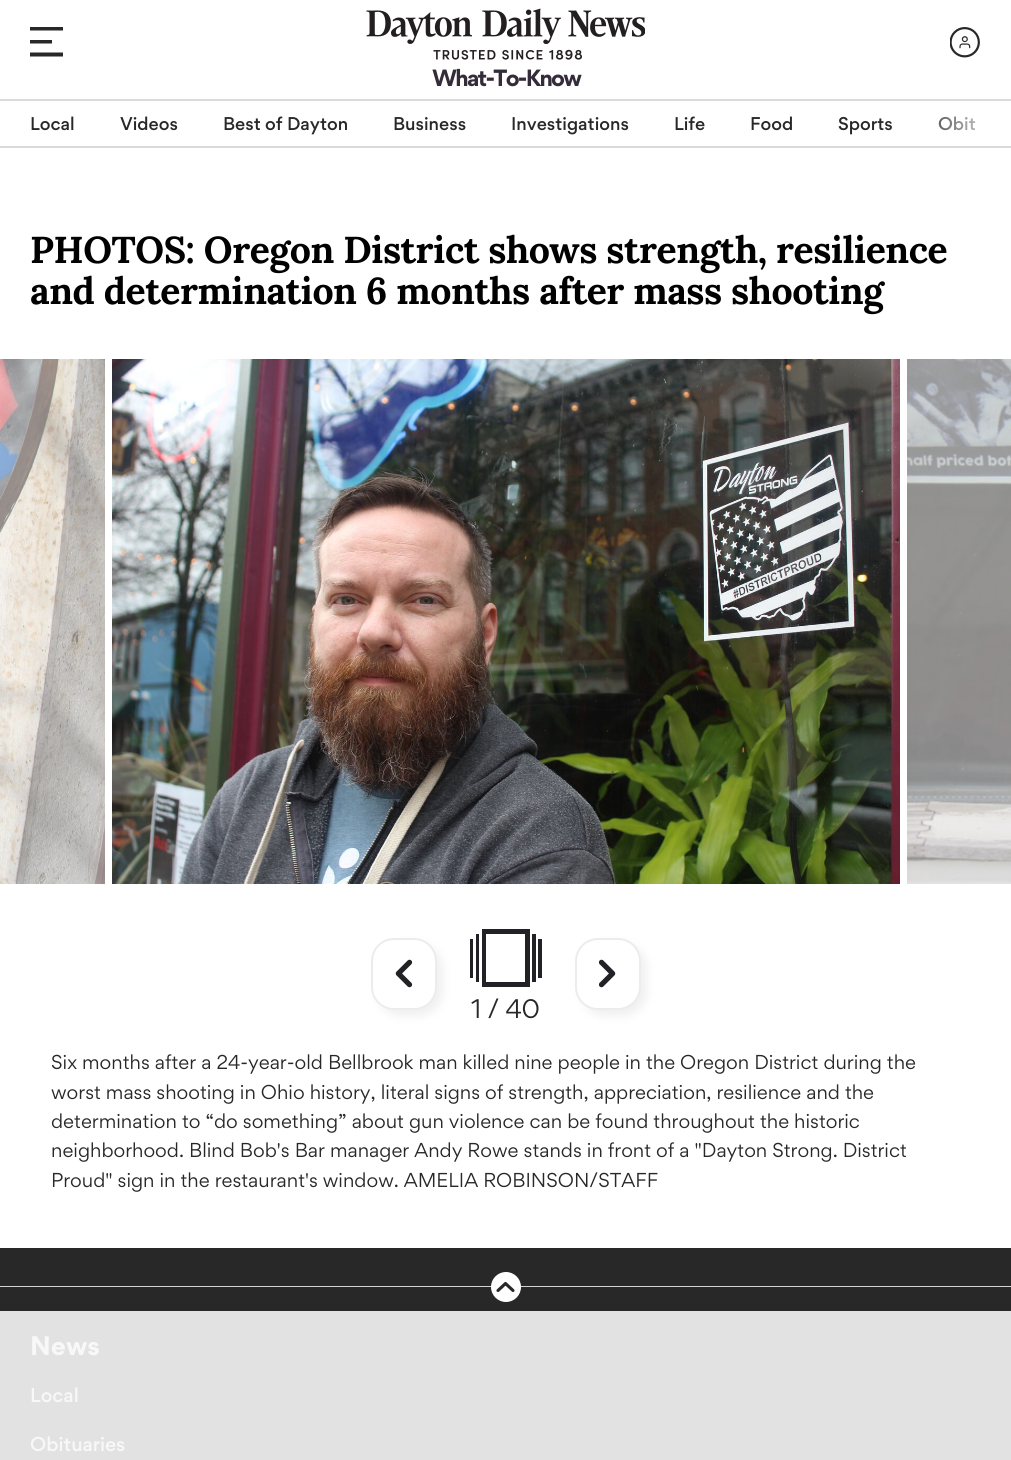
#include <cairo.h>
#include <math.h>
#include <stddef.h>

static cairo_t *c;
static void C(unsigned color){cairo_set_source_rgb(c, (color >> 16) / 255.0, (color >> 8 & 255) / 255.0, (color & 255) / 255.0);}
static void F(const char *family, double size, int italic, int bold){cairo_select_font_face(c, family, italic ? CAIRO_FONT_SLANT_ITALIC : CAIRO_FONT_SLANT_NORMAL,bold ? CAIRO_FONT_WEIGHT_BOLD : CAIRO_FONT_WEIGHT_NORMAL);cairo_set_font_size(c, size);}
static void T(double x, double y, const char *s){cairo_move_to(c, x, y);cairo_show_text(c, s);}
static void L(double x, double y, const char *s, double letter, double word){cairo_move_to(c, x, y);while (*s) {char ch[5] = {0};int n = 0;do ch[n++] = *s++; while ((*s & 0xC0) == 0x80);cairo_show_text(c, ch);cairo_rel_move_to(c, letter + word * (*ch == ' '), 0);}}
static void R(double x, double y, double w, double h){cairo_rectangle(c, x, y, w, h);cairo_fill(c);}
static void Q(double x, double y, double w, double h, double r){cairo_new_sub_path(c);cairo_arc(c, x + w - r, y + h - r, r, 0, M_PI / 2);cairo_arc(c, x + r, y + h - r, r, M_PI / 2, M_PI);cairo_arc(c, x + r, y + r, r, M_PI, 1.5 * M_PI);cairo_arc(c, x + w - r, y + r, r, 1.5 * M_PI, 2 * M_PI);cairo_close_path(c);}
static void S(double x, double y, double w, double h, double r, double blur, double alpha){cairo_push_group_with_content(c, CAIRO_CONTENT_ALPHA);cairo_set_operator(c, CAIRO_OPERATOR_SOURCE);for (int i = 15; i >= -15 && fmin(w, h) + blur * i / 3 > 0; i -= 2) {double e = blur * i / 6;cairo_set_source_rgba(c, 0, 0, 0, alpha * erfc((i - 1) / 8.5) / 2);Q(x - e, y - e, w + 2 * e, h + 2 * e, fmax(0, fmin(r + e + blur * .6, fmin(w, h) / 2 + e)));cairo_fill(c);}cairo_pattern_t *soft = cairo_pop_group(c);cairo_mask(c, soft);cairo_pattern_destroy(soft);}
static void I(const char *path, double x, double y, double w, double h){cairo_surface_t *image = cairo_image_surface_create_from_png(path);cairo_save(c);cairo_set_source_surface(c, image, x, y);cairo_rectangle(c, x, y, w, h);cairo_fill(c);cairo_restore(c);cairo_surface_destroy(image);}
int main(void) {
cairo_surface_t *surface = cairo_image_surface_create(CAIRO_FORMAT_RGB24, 1011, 1460);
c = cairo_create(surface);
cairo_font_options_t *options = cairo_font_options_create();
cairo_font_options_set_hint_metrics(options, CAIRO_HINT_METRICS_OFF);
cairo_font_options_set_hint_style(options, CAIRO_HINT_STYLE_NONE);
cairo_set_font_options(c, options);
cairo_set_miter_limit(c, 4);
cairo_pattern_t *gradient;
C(0xffffff);
cairo_paint(c);
C(0x282828);
cairo_new_path(c);
cairo_move_to(c,30,27);
cairo_line_to(c,63,27);
cairo_line_to(c,63,30.5);
cairo_line_to(c,30,30.5);
cairo_close_path(c);
cairo_move_to(c,30,40);
cairo_line_to(c,52,40);
cairo_line_to(c,52,43.5);
cairo_line_to(c,30,43.5);
cairo_close_path(c);
cairo_move_to(c,30,52.5);
cairo_line_to(c,63,52.5);
cairo_line_to(c,63,56.5);
cairo_line_to(c,30,56.5);
cairo_close_path(c);
cairo_fill(c);
I("1.png",366,8,279,52);
I("2.png",950,27,30,31);
F("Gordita",21,0,1);
C(0x342c38);
L(432,86,"What-To-Know",-1.75,0);
C(0xdadada);
R(0,99,1011,2);
R(0,146,1011,2);
F("Gordita Medium",16.5,0,0);
C(0x282828);
T(30,130,"Local");
T(120,130,"Videos");
T(223,130,"Best of Dayton");
T(393,130,"Business");
T(511,130,"Investigations");
T(674,130,"Life");
T(750,130,"Food");
T(838,130,"Sports");
T(938,130,"Obit");
gradient = cairo_pattern_create_linear(1011,123,911,123);
cairo_pattern_add_color_stop_rgba(gradient,0,1,1,1,1);
cairo_pattern_add_color_stop_rgba(gradient,1,1,1,1,0);
cairo_set_source(c,gradient);
cairo_pattern_destroy(gradient);
R(938,116,37,15);
F("Lora",37.4,0,1);
C(0x000000);
L(30,263,"PHOTOS: Oregon District shows strength, resilience",-.45,0);
L(30,304,"and determination 6 months after mass shooting",-.45,0);
I("3.png",0,359,105,525);
I("4.png",112,359,788,525);
I("5.png",907,359,104,525);
C(0xe6e6e6);
S(377,944,66,72,23,4.5,.6);
C(0xffffff);
Q(372,939,64,70,22);
cairo_fill_preserve(c);
C(0xececec);
cairo_stroke(c);
I("6.png",395,959,18,29);
C(0x212126);
R(470,939,3,39);
R(476,934,3,48);
cairo_set_fill_rule(c,CAIRO_FILL_RULE_EVEN_ODD);
cairo_new_path(c);
cairo_move_to(c,482,987);
cairo_line_to(c,530,987);
cairo_line_to(c,530,929);
cairo_line_to(c,482,929);
cairo_close_path(c);
cairo_move_to(c,486,982);
cairo_line_to(c,525,982);
cairo_line_to(c,525,934);
cairo_line_to(c,486,934);
cairo_close_path(c);
cairo_fill(c);
R(532,934,4,48);
R(538,939,4,39);
C(0xe6e6e6);
S(581,944,66,72,23,4.5,.6);
C(0xffffff);
Q(576,939,64,70,22);
cairo_fill_preserve(c);
C(0xececec);
cairo_stroke(c);
I("7.png",599,959,17,29);
F("Gordita",24,0,0);
C(0x282828);
L(471,1018,"1 / 40",-.25,0);
F("Gordita",18,0,0);
T(51,1069,"Six months after a 24-year-old Bellbrook man killed nine people in the Oregon District during the");
T(51,1099,"worst mass shooting in Ohio history, literal signs of strength, appreciation, resilience and the");
T(51,1128,"determination to “do something” about gun violence can be found throughout the historic");
T(51,1157,"neighborhood. Blind Bob's Bar manager Andy Rowe stands in front of a \"Dayton Strong. District");
T(51,1187,"Proud\" sign in the restaurant's window. AMELIA ROBINSON/STAFF");
R(0,1248,1011,38);
C(0xd3d3d3);
R(0,1286,1011,1);
C(0x282828);
R(0,1287,1011,24);
C(0xffffff);
cairo_new_path(c);
cairo_arc(c,506,1287,15,0,2 * M_PI);
cairo_fill(c);
cairo_new_path(c);
cairo_move_to(c,513,1290.5);
cairo_line_to(c,505.5,1283.5);
cairo_line_to(c,498,1290.5);
C(0x282828);
cairo_set_line_width(c,3.1);
cairo_set_line_cap(c,CAIRO_LINE_CAP_ROUND);
cairo_set_line_join(c,CAIRO_LINE_JOIN_ROUND);
cairo_stroke(c);
C(0xe2e2e2);
R(0,1311,1011,149);
F("Gordita",24,0,1);
C(0xf8f8f8);
T(30,1355,"News");
F("Gordita Medium",18,0,0);
T(30,1402,"Local");
T(30,1451,"Obituaries");
cairo_surface_write_to_png(surface, "o.png");
cairo_font_options_destroy(options);
cairo_destroy(c);
cairo_surface_destroy(surface);
return 0;
}
